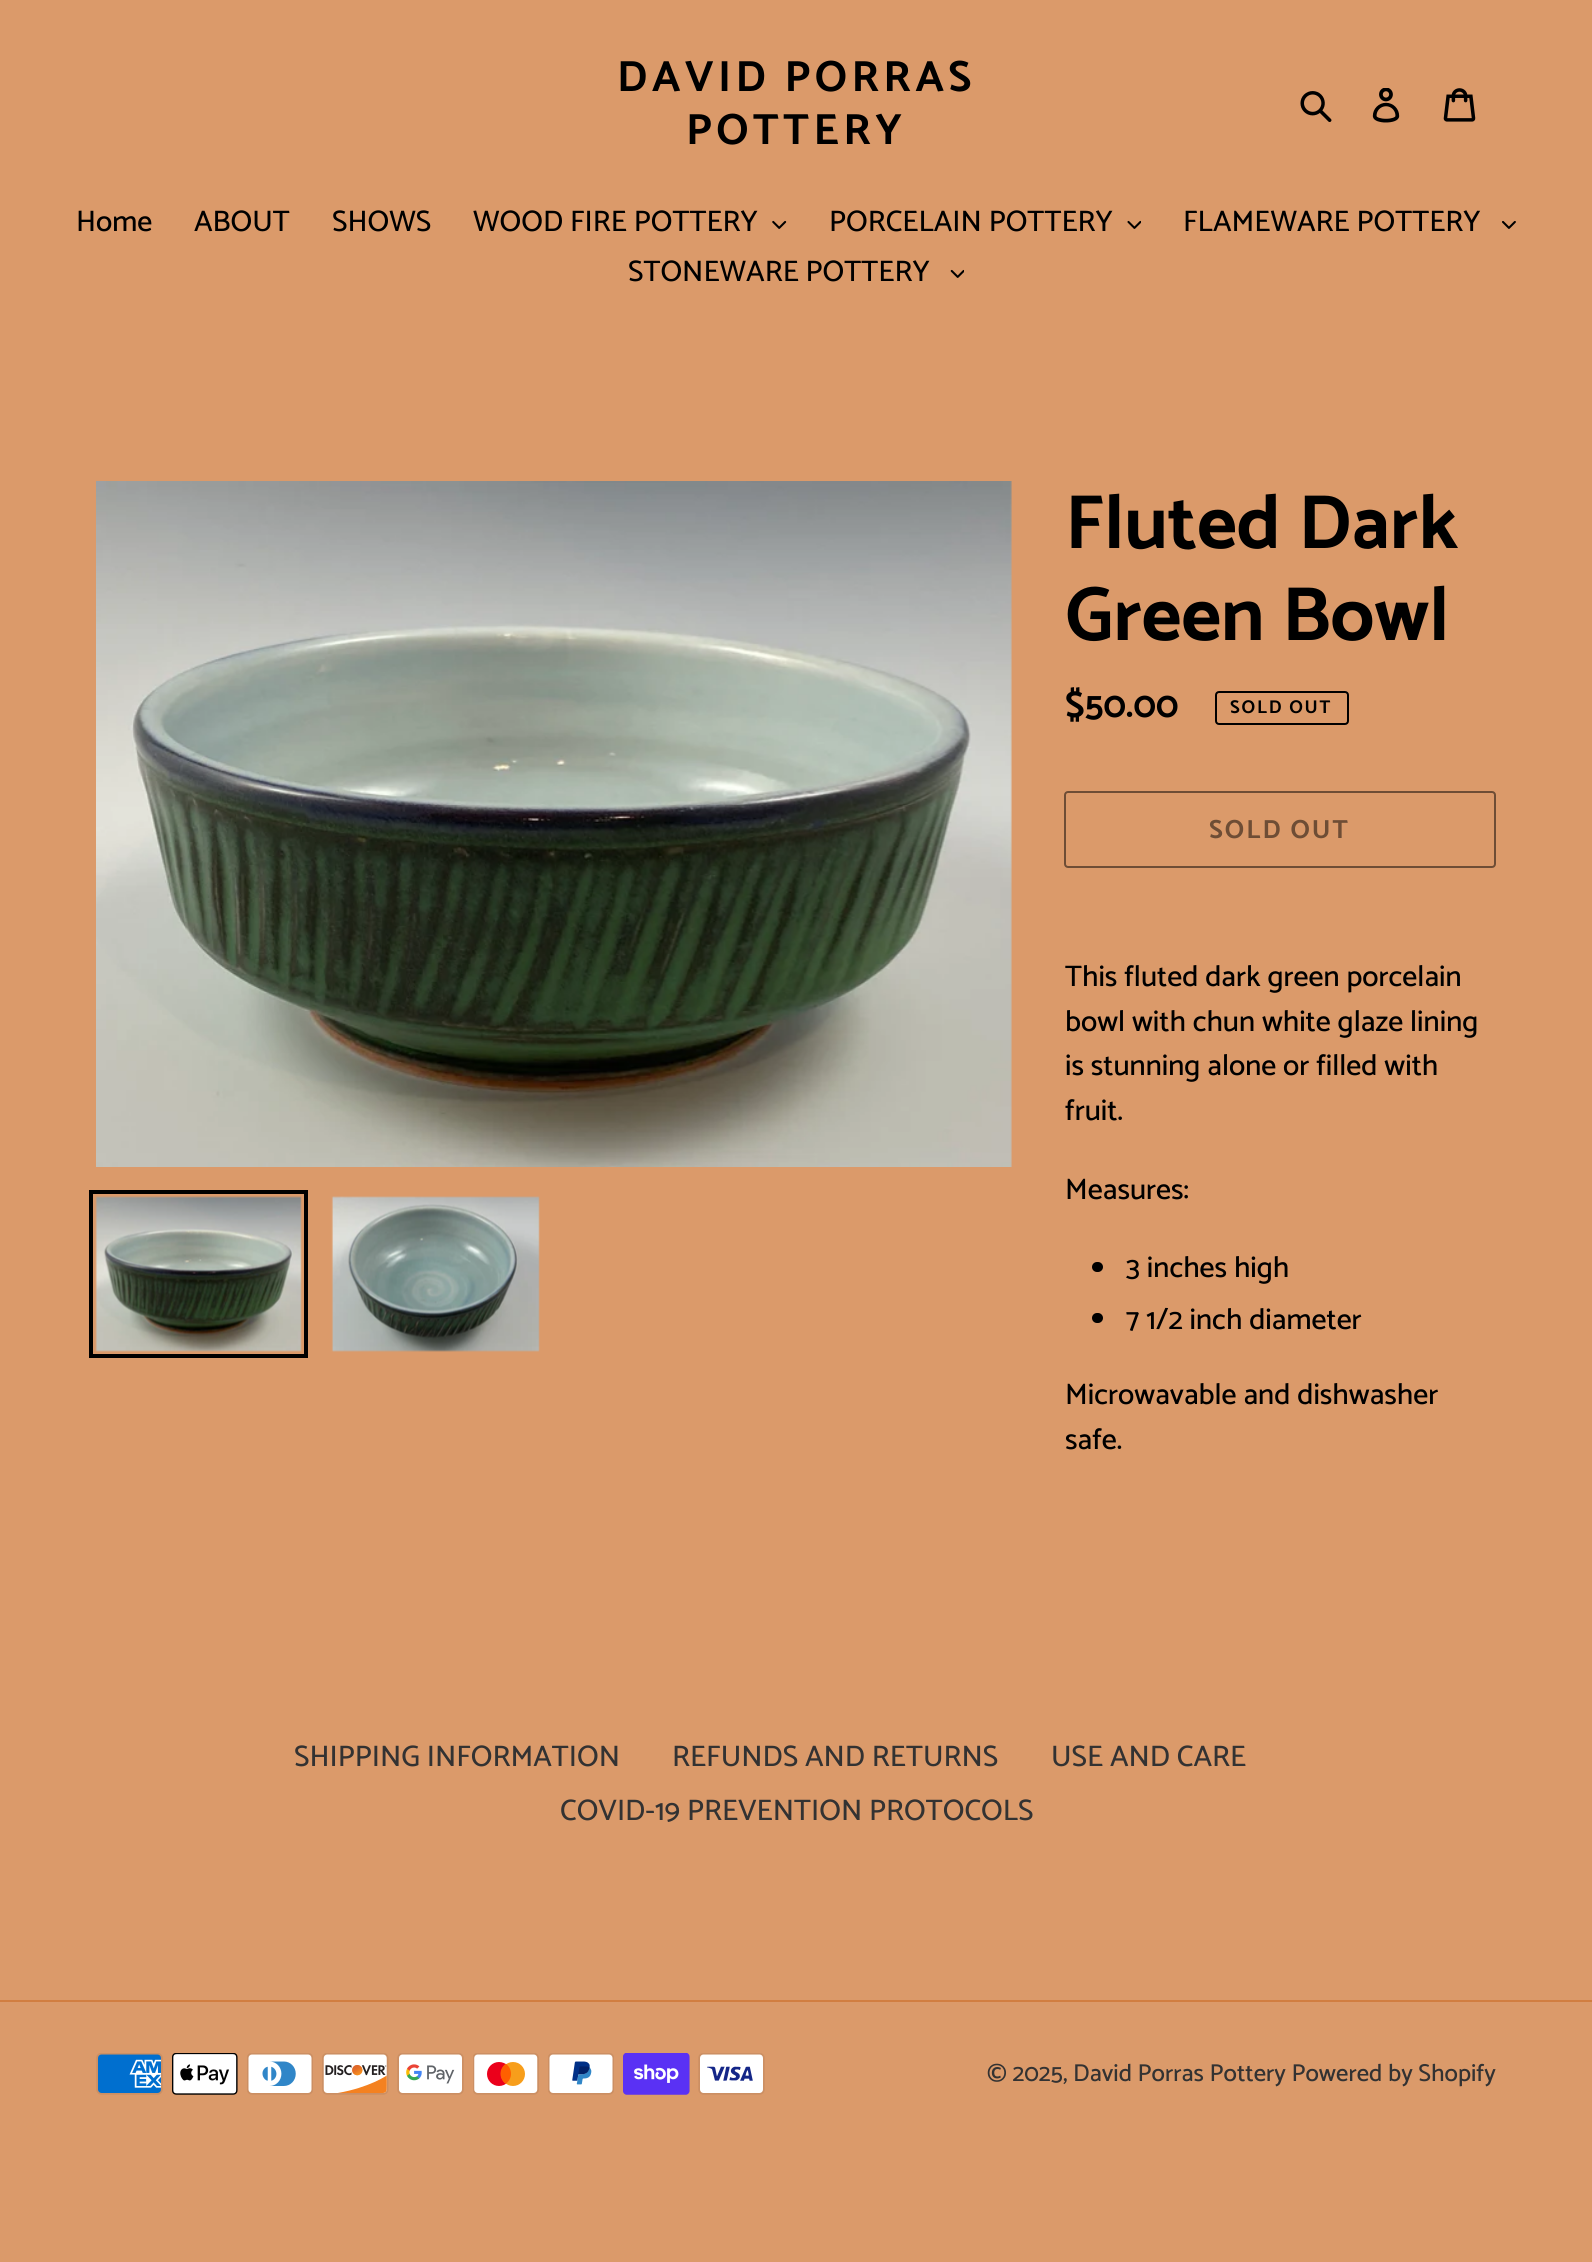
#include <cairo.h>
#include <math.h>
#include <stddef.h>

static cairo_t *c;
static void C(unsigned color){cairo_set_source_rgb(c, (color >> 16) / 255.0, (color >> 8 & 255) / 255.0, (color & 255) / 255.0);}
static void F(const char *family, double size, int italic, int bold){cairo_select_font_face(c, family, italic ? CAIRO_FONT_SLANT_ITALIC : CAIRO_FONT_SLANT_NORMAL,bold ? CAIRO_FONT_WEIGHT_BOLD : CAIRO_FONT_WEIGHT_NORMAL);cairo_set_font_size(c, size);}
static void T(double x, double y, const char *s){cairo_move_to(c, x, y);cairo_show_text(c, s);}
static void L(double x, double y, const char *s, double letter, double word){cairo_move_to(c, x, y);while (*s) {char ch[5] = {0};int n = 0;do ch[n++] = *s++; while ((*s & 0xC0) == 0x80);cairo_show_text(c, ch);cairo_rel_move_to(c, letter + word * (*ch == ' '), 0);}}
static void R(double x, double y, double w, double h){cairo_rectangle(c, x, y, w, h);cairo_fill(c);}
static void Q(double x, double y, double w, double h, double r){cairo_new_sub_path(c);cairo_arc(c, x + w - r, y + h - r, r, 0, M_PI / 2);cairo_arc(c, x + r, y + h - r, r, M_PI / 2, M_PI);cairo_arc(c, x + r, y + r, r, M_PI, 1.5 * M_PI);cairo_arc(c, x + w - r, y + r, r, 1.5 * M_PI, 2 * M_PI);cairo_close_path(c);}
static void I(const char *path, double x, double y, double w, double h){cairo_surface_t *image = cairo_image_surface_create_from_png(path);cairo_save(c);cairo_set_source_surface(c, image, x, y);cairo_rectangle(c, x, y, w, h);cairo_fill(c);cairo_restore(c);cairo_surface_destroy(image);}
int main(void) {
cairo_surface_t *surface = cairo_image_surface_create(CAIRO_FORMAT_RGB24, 1592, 2262);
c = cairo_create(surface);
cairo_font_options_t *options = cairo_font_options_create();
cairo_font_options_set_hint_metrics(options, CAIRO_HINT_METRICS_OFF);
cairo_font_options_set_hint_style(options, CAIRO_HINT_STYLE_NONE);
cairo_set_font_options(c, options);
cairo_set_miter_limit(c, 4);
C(0xdb9a6a);
cairo_paint(c);
F("Catamaran",43.75,0,1);
C(0x000000);
L(617,91,"DAVID PORRAS",4.4,0);
L(686,144,"POTTERY",4.4,0);
I("1.png",1300,91,32,31);
I("2.png",1372,88,28,35);
I("3.png",1443,88,33,34);
F("Catamaran Medium",29.75,0,0);
T(76,231,"Home");
T(194,231,"ABOUT");
T(332,231,"SHOWS");
T(473,231,"WOOD FIRE POTTERY");
I("4.png",772,220,15,9);
T(829,231,"PORCELAIN POTTERY");
I("5.png",1127,220,14,9);
T(1183,231,"FLAMEWARE POTTERY");
I("6.png",1502,221,14,8);
T(628,281,"STONEWARE POTTERY");
I("7.png",950,269,14,9);
I("8.png",96,481,916,686);
cairo_rectangle(c,91,1192,215,164);
cairo_set_line_width(c,4);
cairo_stroke(c);
I("9.png",95,1196,207,156);
I("10.png",331,1196,209,156);
F("Catamaran",77,0,1);
T(1065,548,"Fluted Dark");
T(1065,640,"Green Bowl");
F("Catamaran",37,0,1);
T(1065,717,"$50.00");
Q(1216,692,132,32,3);
cairo_set_line_width(c,2);
cairo_stroke(c);
F("Catamaran",18.5,0,1);
L(1230,713,"SOLD OUT",1.75,0);
Q(1065,792,430,75,3);
C(0x6e4d35);
cairo_stroke(c);
F("Catamaran",26.25,0,1);
L(1209,838,"SOLD OUT",2,0);
F("Catamaran Medium",29.75,0,0);
C(0x000000);
T(1065,986,"This fluted dark green porcelain");
T(1065,1031,"bowl with chun white glaze lining");
T(1065,1075,"is stunning alone or filled with");
T(1065,1120,"fruit.");
T(1065,1199,"Measures:");
Q(1092,1262,11,10,5);
cairo_fill(c);
T(1126,1277,"3 inches high");
Q(1092,1313,11,10,5);
cairo_fill(c);
T(1126,1329,"7 1/2 inch diameter");
T(1065,1404,"Microwavable and dishwasher");
T(1065,1449,"safe.");
C(0x333232);
T(294,1766,"SHIPPING INFORMATION");
T(672,1766,"REFUNDS AND RETURNS");
T(1051,1766,"USE AND CARE");
T(560,1820,"COVID-19 PREVENTION PROTOCOLS");
C(0xd17e41);
R(0,2000,1592,2);
I("11.png",96,2053,67,42);
I("12.png",172,2053,66,42);
I("13.png",247,2053,66,42);
I("14.png",322,2053,67,42);
I("15.png",397,2053,67,42);
I("16.png",473,2053,66,42);
I("17.png",548,2053,66,42);
I("18.png",623,2053,67,42);
I("19.png",698,2053,67,42);
F("Catamaran Medium",24.5,0,0);
C(0x333232);
T(987,2081,"© 2025, David Porras Pottery Powered by Shopify");
cairo_surface_write_to_png(surface, "o.png");
cairo_font_options_destroy(options);
cairo_destroy(c);
cairo_surface_destroy(surface);
return 0;
}
